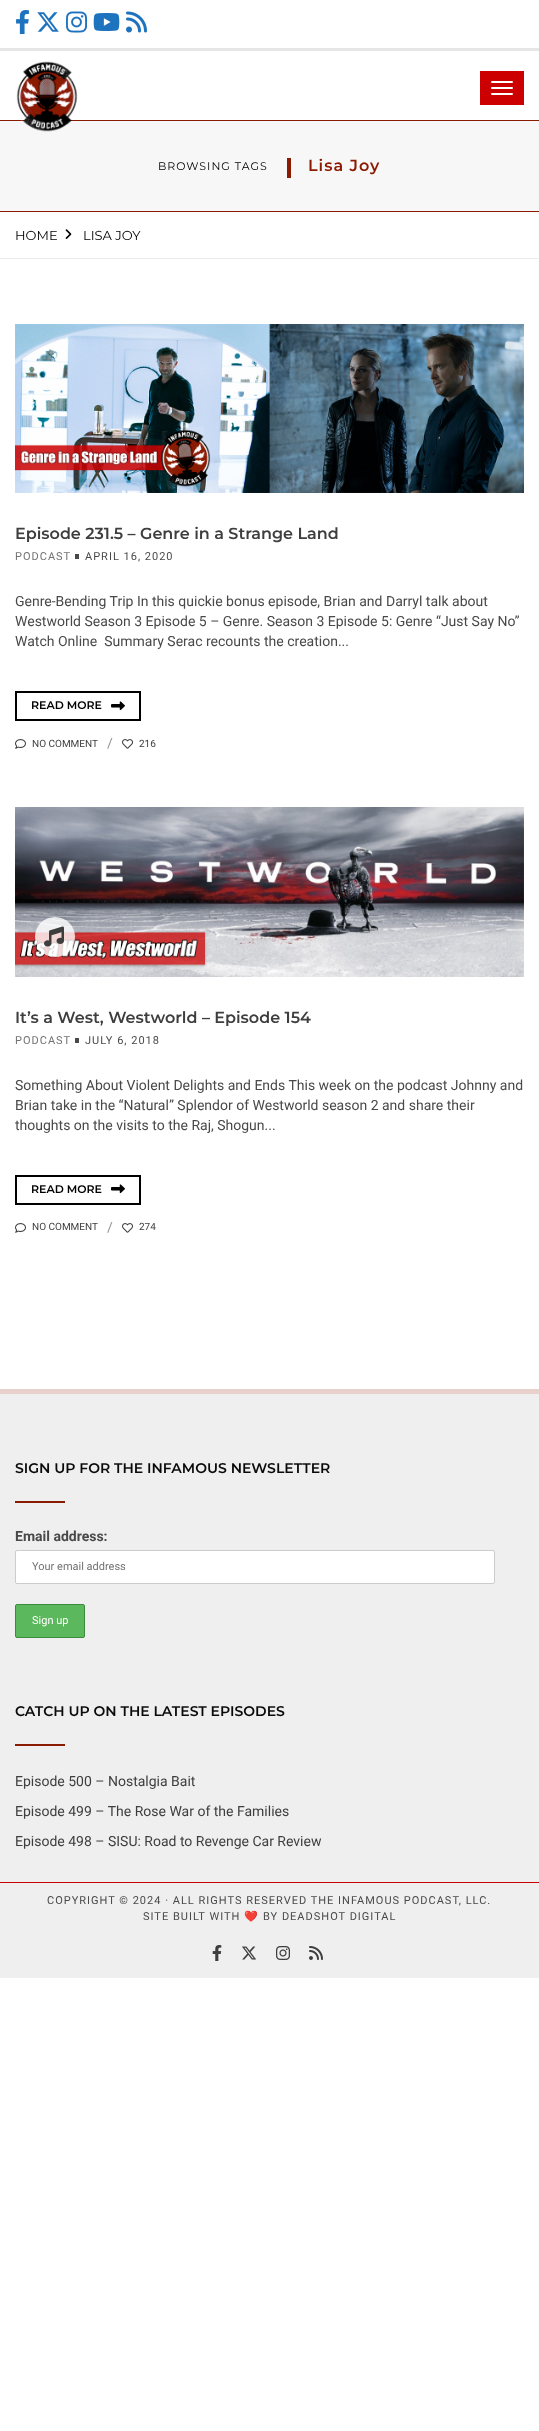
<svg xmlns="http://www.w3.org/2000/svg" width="539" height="2431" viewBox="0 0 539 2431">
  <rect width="100%" height="100%" fill="#fff"/>
  <path d="M0 48h539v3H0z" fill="#e6e6e6"/>
  <image x="16" y="10" width="13" height="24" href="img/1.png"/>
  <image x="37" y="12" width="22" height="20" href="img/2.png"/>
  <image x="66" y="11" width="21" height="22" href="img/3.png"/>
  <image x="93" y="13" width="27" height="18" href="img/4.png"/>
  <image x="126" y="11" width="21" height="22" href="img/5.png"/>
  <path d="M0 121h539v90H0z" fill="#f7f7f7"/>
  <path d="M0 120h539v1H0z" fill="#8b1b00"/>
  <image x="16" y="61" width="62" height="71" href="img/6.png"/>
  <path d="M480 71h44v34H480z" fill="#c00"/>
  <rect x="491" y="81" width="22" height="2" rx="1" fill="#fff"/>
  <rect x="491" y="87" width="22" height="2" rx="1" fill="#fff"/>
  <rect x="491" y="93" width="22" height="2" rx="1" fill="#fff"/>
  <path d="M0 211h539v1H0z" fill="#8b1b00"/>
  <path d="M287 158h4v20H287z" fill="#8b1b00"/>
  <path d="M0 258h539v1H0z" fill="#ececec"/>
  <image x="65" y="229" width="7" height="10" href="img/7.png"/>
  <image x="15" y="324" width="509" height="169" href="img/8.png"/>
  <path d="M75 554h4v5H75z" fill="#494949"/>
  <path d="M16 692h124v28H16z" fill="none" stroke="#000" stroke-width="2"/>
  <image x="111" y="701" width="14" height="10" href="img/9.png"/>
  <image x="15" y="739" width="11" height="10" href="img/10.png"/>
  <image x="122" y="739" width="11" height="10" href="img/11.png"/>
  <image x="15" y="807" width="509" height="170" href="img/12.png"/>
  <circle cx="55" cy="937" r="20" fill="#ffffffcc"/>
  <image x="44" y="926" width="20" height="21" href="img/13.png"/>
  <path d="M75 1038h4v5H75z" fill="#494949"/>
  <path d="M16 1176h124v28H16z" fill="none" stroke="#000" stroke-width="2"/>
  <image x="111" y="1184" width="14" height="10" href="img/9.png"/>
  <image x="15" y="1223" width="11" height="10" href="img/10.png"/>
  <image x="122" y="1223" width="11" height="10" href="img/11.png"/>
  <path d="M0 1389h539v5H0z" fill="#e8d1cc"/>
  <path d="M0 1394h539v584H0z" fill="#efefef"/>
  <path d="M15 1501h50v2H15z" fill="#8b1b00"/>
  <rect x="15.5" y="1550.5" width="479" height="33" rx="1.5" fill="#fff" stroke="#ccc"/>
  <rect x="15.5" y="1604.5" width="69" height="33" rx="1.5" fill="#5cb85c" stroke="#3d8b3d"/>
  <path d="M15 1744h50v2H15z" fill="#8b1b00"/>
  <path d="M0 1882h539v1H0z" fill="#c00"/>
  <image x="212" y="1945" width="10" height="16" href="img/14.png"/>
  <image x="242" y="1946" width="15" height="14" href="img/15.png"/>
  <image x="276" y="1946" width="14" height="14" href="img/16.png"/>
  <image x="309" y="1946" width="14" height="14" href="img/17.png"/>
  <text x="158" y="170" font-family="Montserrat" font-size="11" letter-spacing="1" fill="#000">BROWSING TAGS</text>
  <text x="308" y="171" font-family="Montserrat" font-size="16" font-weight="600" letter-spacing="1" fill="#8b1b00">Lisa Joy</text>
  <g font-family="Montserrat" font-size="13" fill="#000">
    <text x="15" y="240">HOME</text>
    <text x="83" y="240">LISA JOY</text>
  </g>
  <text x="15" y="539" font-family="Montserrat" font-size="16" font-weight="600" fill="#3e3e3e">Episode 231.5 – Genre in a Strange Land</text>
  <text x="15" y="560" font-family="Roboto" font-size="11" letter-spacing="1" fill="#737373">PODCAST</text>
  <text x="85" y="560" font-family="Roboto" font-size="11" letter-spacing="1" fill="#494949">APRIL 16, 2020</text>
  <g font-family="Roboto" font-size="14" fill="#494949">
    <text x="15" y="606">Genre-Bending Trip In this quickie bonus episode, Brian and Darryl talk about</text>
    <text x="15" y="626">Westworld Season 3 Episode 5 – Genre. Season 3 Episode 5: Genre “Just Say No”</text>
    <text x="15" y="646" xml:space="preserve">Watch Online  Summary Serac recounts the creation...</text>
  </g>
  <text x="31" y="709" font-family="Montserrat" font-size="11" font-weight="600" fill="#000">READ MORE</text>
  <text x="32" y="747" font-family="Roboto" font-size="10" fill="#3e3e3e">NO COMMENT</text>
  <text x="107" y="748" font-family="Roboto" font-size="14" fill="#939393">/</text>
  <text x="139" y="747" font-family="Roboto" font-size="10" fill="#3e3e3e">216</text>
  <text x="15" y="1023" font-family="Montserrat" font-size="16" font-weight="600" fill="#3e3e3e">It’s a West, Westworld – Episode 154</text>
  <text x="15" y="1044" font-family="Roboto" font-size="11" letter-spacing="1" fill="#737373">PODCAST</text>
  <text x="85" y="1044" font-family="Roboto" font-size="11" letter-spacing="1" fill="#494949">JULY 6, 2018</text>
  <g font-family="Roboto" font-size="14" fill="#494949">
    <text x="15" y="1090">Something About Violent Delights and Ends This week on the podcast Johnny and</text>
    <text x="15" y="1110">Brian take in the “Natural” Splendor of Westworld season 2 and share their</text>
    <text x="15" y="1130">thoughts on the visits to the Raj, Shogun...</text>
  </g>
  <text x="31" y="1193" font-family="Montserrat" font-size="11" font-weight="600" fill="#000">READ MORE</text>
  <text x="32" y="1230" font-family="Roboto" font-size="10" fill="#3e3e3e">NO COMMENT</text>
  <text x="107" y="1232" font-family="Roboto" font-size="14" fill="#939393">/</text>
  <text x="139" y="1230" font-family="Roboto" font-size="10" fill="#3e3e3e">274</text>
  <text x="15" y="1473" font-family="Montserrat" font-size="14" font-weight="600" fill="#0a0a0a">SIGN UP FOR THE INFAMOUS NEWSLETTER</text>
  <text x="15" y="1541" font-family="Roboto" font-size="14" font-weight="bold" fill="#494949">Email address:</text>
  <text x="32" y="1570" font-family="Roboto" font-size="11" fill="#737373">Your email address</text>
  <text x="32" y="1624" font-family="Roboto" font-size="11" fill="#fff">Sign up</text>
  <text x="15" y="1716" font-family="Montserrat" font-size="14" font-weight="600" fill="#0a0a0a">CATCH UP ON THE LATEST EPISODES</text>
  <g font-family="Roboto" font-size="14" fill="#3e3e3e">
    <text x="15" y="1786">Episode 500 – Nostalgia Bait</text>
    <text x="15" y="1816">Episode 499 – The Rose War of the Families</text>
    <text x="15" y="1846">Episode 498 – SISU: Road to Revenge Car Review</text>
  </g>
  <g font-family="Roboto" font-size="11" letter-spacing="1" fill="#494949">
    <text x="47" y="1904">COPYRIGHT © 2024 · ALL RIGHTS RESERVED THE INFAMOUS PODCAST, LLC.</text>
    <text x="143" y="1920">SITE BUILT WITH</text>
  </g>
  <text x="244" y="1920" font-family="Noto Color Emoji" font-size="11" letter-spacing="1" fill="#494949">❤️</text>
  <text x="263" y="1920" font-family="Roboto" font-size="11" letter-spacing="1" fill="#494949">BY DEADSHOT DIGITAL</text>
</svg>
